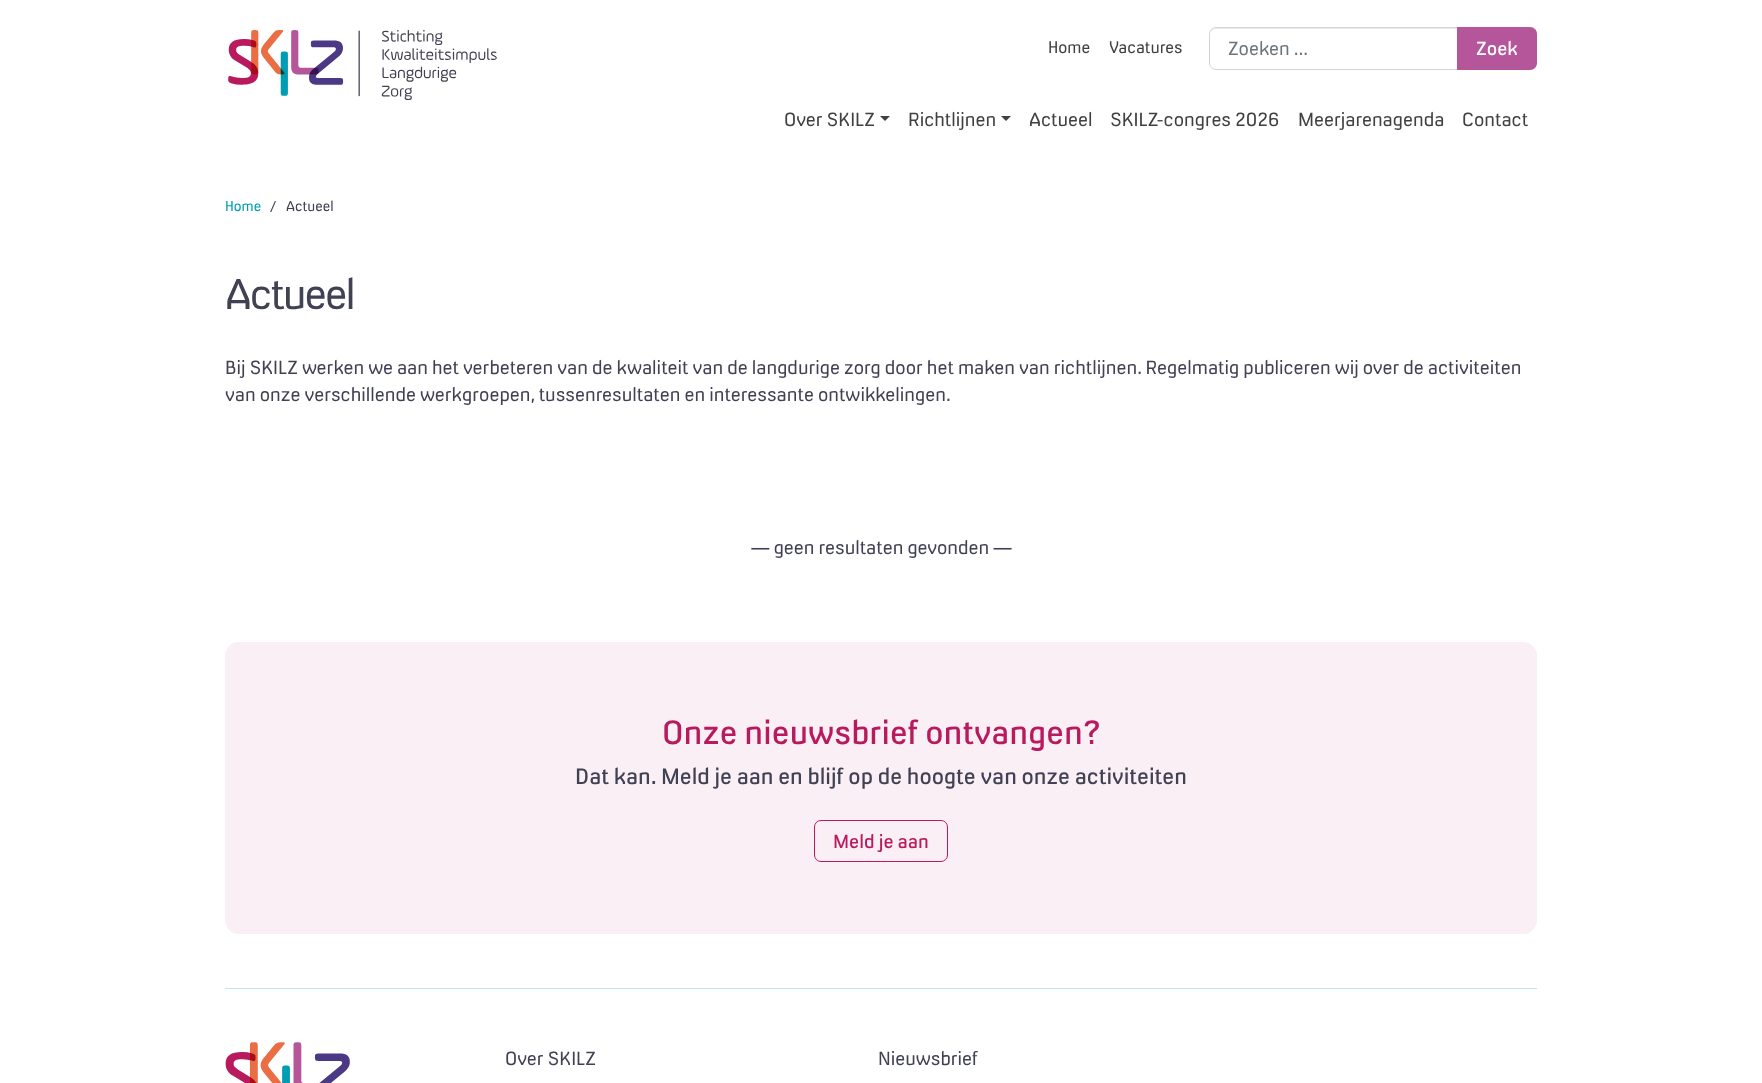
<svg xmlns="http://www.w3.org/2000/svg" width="1762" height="1083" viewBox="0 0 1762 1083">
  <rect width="100%" height="100%" fill="#fff"/>
  <path d="M1216 29H1457V28H1216C1212 28 1210 31 1210 35C1210 32 1213 29 1216 29Z" fill="#ececec"/>
  <path d="M1216 27.5H1457.5V69.5H1216C1212.5 69.5 1209.5 66.5 1209.5 63V34C1209.5 30.5 1212.5 27.5 1216 27.5Z" fill="none" stroke="#ced4da"/>
  <path d="M1457 27H1530C1534 27 1537 30 1537 34V63C1537 67 1534 70 1530 70H1457Z" fill="#b5569a"/>
  <image x="228" y="30" width="269" height="70" href="img/1.png"/>
  <path d="M880 116H890L885 121Z" fill="#404040"/>
  <path d="M1001 116H1011L1006 121Z" fill="#404040"/>
  <rect x="225" y="642" width="1312" height="292" rx="14" fill="#faeff4"/>
  <rect x="814.5" y="820.5" width="133" height="41" rx="6.5" fill="none" stroke="#b81a5d"/>
  <path d="M225 988h1312v1H225z" fill="#bfe6ec"/>
  <image x="225" y="1042" width="125" height="41" href="img/2.png"/>
  <g font-family="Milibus" font-size="15.75" fill="#404040">
    <text x="1048" y="53">Home</text>
    <text x="1109" y="53">Vacatures</text>
  </g>
  <text x="1228" y="55" font-family="Milibus" font-size="18" fill="#6c757d">Zoeken ...</text>
  <text x="1476" y="55" font-family="'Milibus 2'" font-size="18" fill="#fff">Zoek</text>
  <g font-family="Milibus" font-size="18" fill="#404040">
    <text x="784" y="126">Over SKILZ</text>
    <text x="908" y="126">Richtlijnen</text>
    <text x="1029" y="126">Actueel</text>
    <text x="1110" y="126">SKILZ-congres 2026</text>
    <text x="1298" y="126">Meerjarenagenda</text>
    <text x="1462" y="126">Contact</text>
  </g>
  <text x="225" y="211" font-family="Milibus" font-size="13.5" fill="#009cb4">Home</text>
  <g font-family="Milibus" font-size="13.5" fill="#414154">
    <text x="270" y="211">/</text>
    <text x="286" y="211">Actueel</text>
  </g>
  <text x="225" y="309" font-family="Milibus" font-size="40.5" letter-spacing="-2" fill="#414154">Actueel</text>
  <g font-family="Milibus" font-size="18" fill="#414154">
    <text x="225" y="374">Bij SKILZ werken we aan het verbeteren van de kwaliteit van de langdurige zorg door het maken van richtlijnen. Regelmatig publiceren wij over de activiteiten</text>
    <text x="225" y="401">van onze verschillende werkgroepen, tussenresultaten en interessante ontwikkelingen.</text>
    <text x="751" y="554">— geen resultaten gevonden —</text>
  </g>
  <text x="662" y="744" font-family="'Milibus 2'" font-size="31.5" fill="#b81a5d">Onze nieuwsbrief ontvangen?</text>
  <text x="575" y="784" font-family="'Milibus 2'" font-size="21.15" fill="#414154">Dat kan. Meld je aan en blijf op de hoogte van onze activiteiten</text>
  <text x="833" y="848" font-family="'Milibus 2'" font-size="18" fill="#b81a5d">Meld je aan</text>
  <g font-family="Milibus" font-size="18" fill="#414154">
    <text x="505" y="1065">Over SKILZ</text>
    <text x="878" y="1065">Nieuwsbrief</text>
  </g>
</svg>
